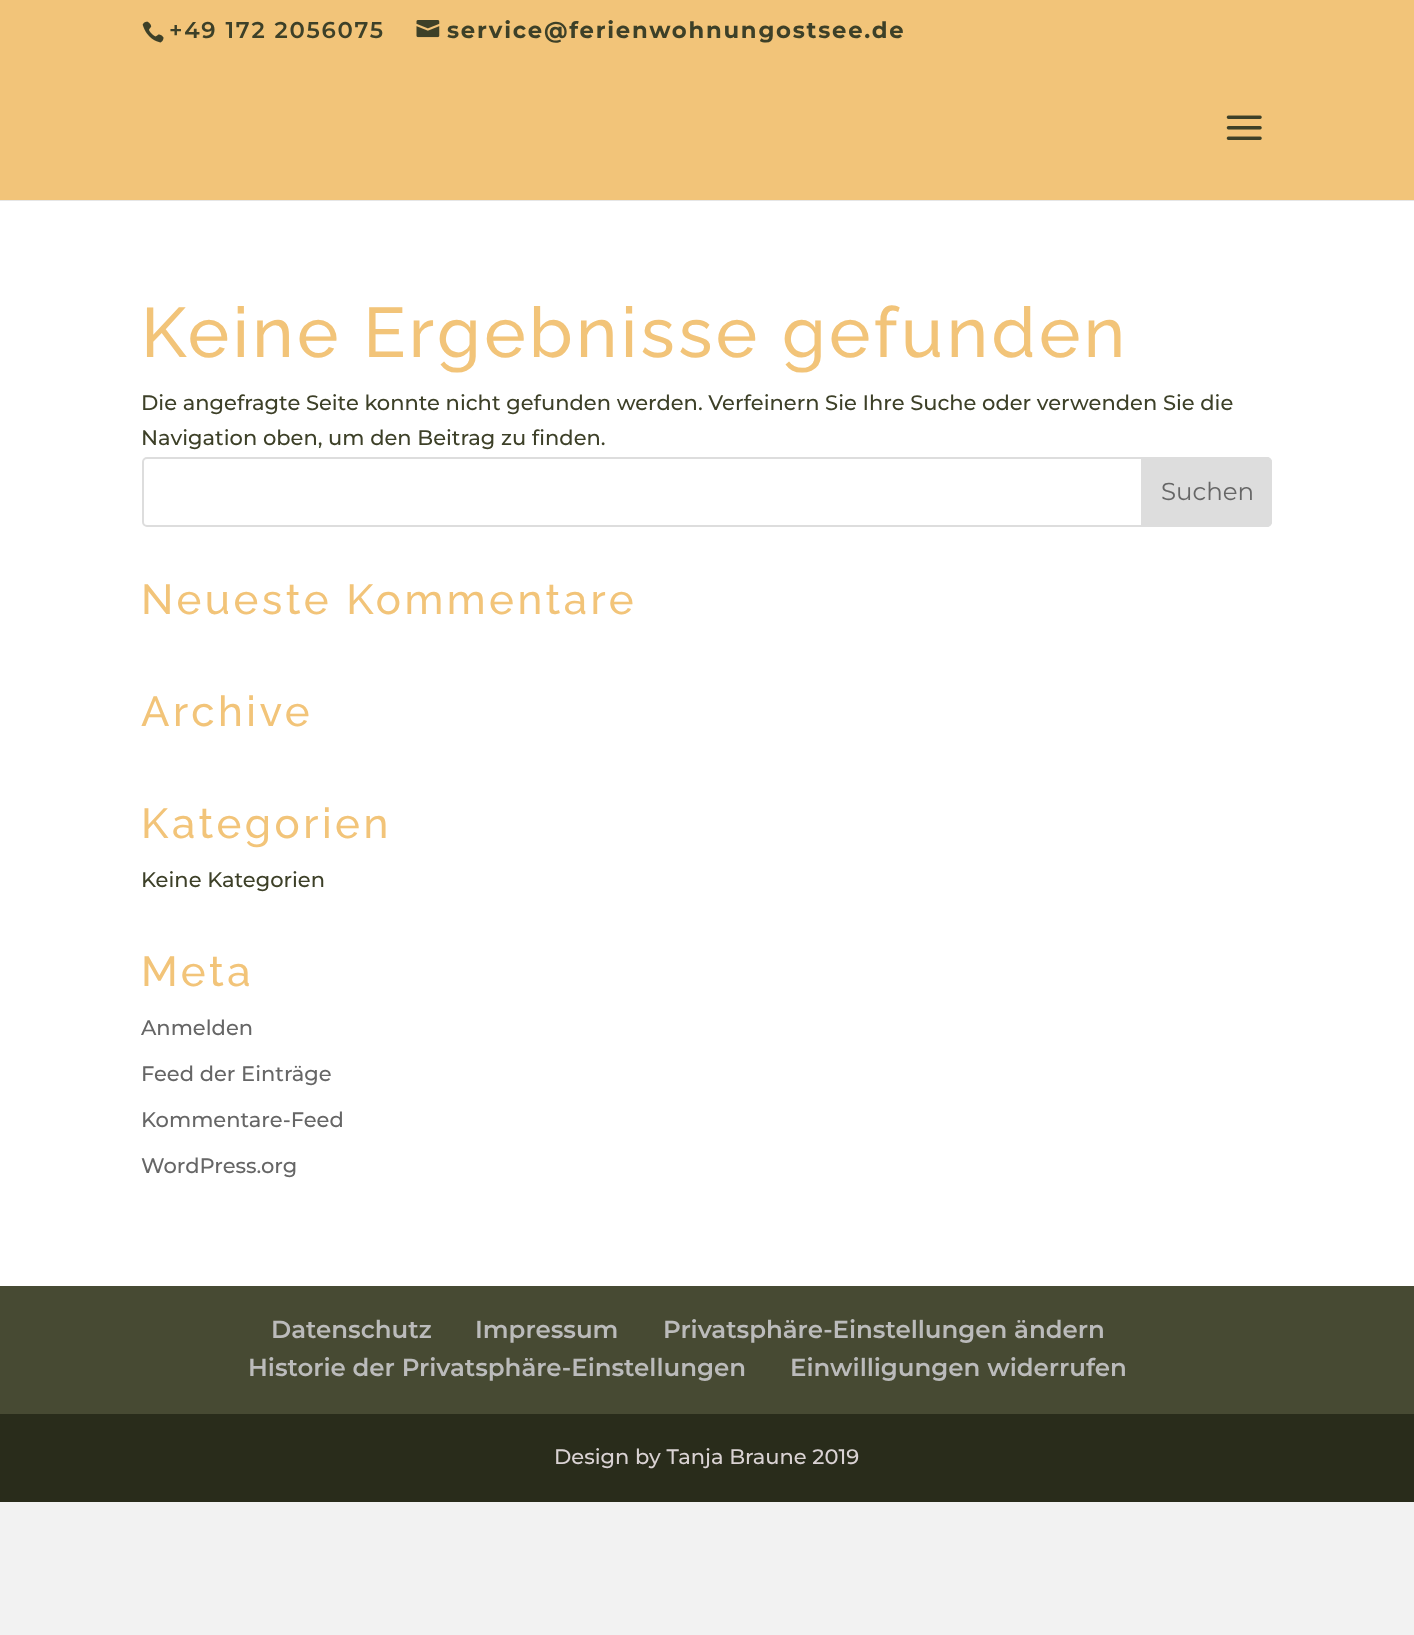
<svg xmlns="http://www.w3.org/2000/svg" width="1414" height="1635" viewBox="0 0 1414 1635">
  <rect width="100%" height="100%" fill="#f2f2f2"/>
  <path d="M0 200h1414v1H0z" fill="#e6e6e6"/>
  <path d="M0 0h1414v200H0z" fill="#f2c479"/>
  <image x="1226" y="115" width="36" height="25" href="img/1.png"/>
  <image x="142" y="21" width="22" height="22" href="img/2.png"/>
  <image x="416" y="20" width="24" height="18" href="img/3.png"/>
  <path d="M0 201h1414v1085H0z" fill="#fff"/>
  <rect x="143" y="458" width="1128" height="68" rx="4" fill="none" stroke="#ddd" stroke-width="2"/>
  <path d="M1142 458H1267C1269 458 1271 460 1271 462V522C1271 524 1269 526 1267 526H1142Z" fill="#ddd" stroke="#ddd" stroke-width="2"/>
  <path d="M0 1286h1414v128H0z" fill="#474a33"/>
  <path d="M0 1414h1414v88H0z" fill="#292c1b"/>
  <text x="169" y="38" font-family="Montserrat" font-size="22.75" font-weight="600" letter-spacing="1.75" fill="#3d4028">+49 172 2056075</text>
  <text x="447" y="38" font-family="Montserrat" font-size="22.75" font-weight="bold" letter-spacing="1.75" fill="#3d4028">service@ferienwohnungostsee.de</text>
  <text x="141" y="357" font-family="Raleway" font-size="70" font-weight="500" letter-spacing="3.5" fill="#f2c479">Keine Ergebnisse gefunden</text>
  <g font-family="Montserrat" font-size="21" font-weight="500" fill="#3d4028">
    <text x="141" y="410">Die angefragte Seite konnte nicht gefunden werden. Verfeinern Sie Ihre Suche oder verwenden Sie die</text>
    <text x="141" y="445">Navigation oben, um den Beitrag zu finden.</text>
  </g>
  <text x="1161" y="500" font-family="Montserrat" font-size="24.5" fill="#666">Suchen</text>
  <g font-family="Raleway" font-size="42" font-weight="500" letter-spacing="3.5" fill="#f2c479">
    <text x="141" y="614">Neueste Kommentare</text>
    <text x="141" y="726">Archive</text>
    <text x="141" y="838">Kategorien</text>
  </g>
  <text x="141" y="887" font-family="Montserrat" font-size="21" font-weight="500" fill="#3d4028">Keine Kategorien</text>
  <text x="141" y="986" font-family="Raleway" font-size="42" font-weight="500" letter-spacing="3.5" fill="#f2c479">Meta</text>
  <g font-family="Montserrat" font-size="21" font-weight="500" fill="#666">
    <text x="141" y="1035">Anmelden</text>
    <text x="141" y="1081">Feed der Einträge</text>
    <text x="141" y="1127">Kommentare-Feed</text>
    <text x="141" y="1173">WordPress.org</text>
  </g>
  <g font-family="Montserrat" font-size="24.5" font-weight="600" fill="#bbb">
    <text x="271" y="1338">Datenschutz</text>
    <text x="475" y="1338">Impressum</text>
    <text x="663" y="1338">Privatsphäre-Einstellungen ändern</text>
    <text x="248" y="1376">Historie der Privatsphäre-Einstellungen</text>
    <text x="790" y="1376">Einwilligungen widerrufen</text>
  </g>
  <text x="554" y="1464" font-family="Montserrat" font-size="21" font-weight="500" fill="#d9d2d3">Design by Tanja Braune 2019</text>
</svg>
